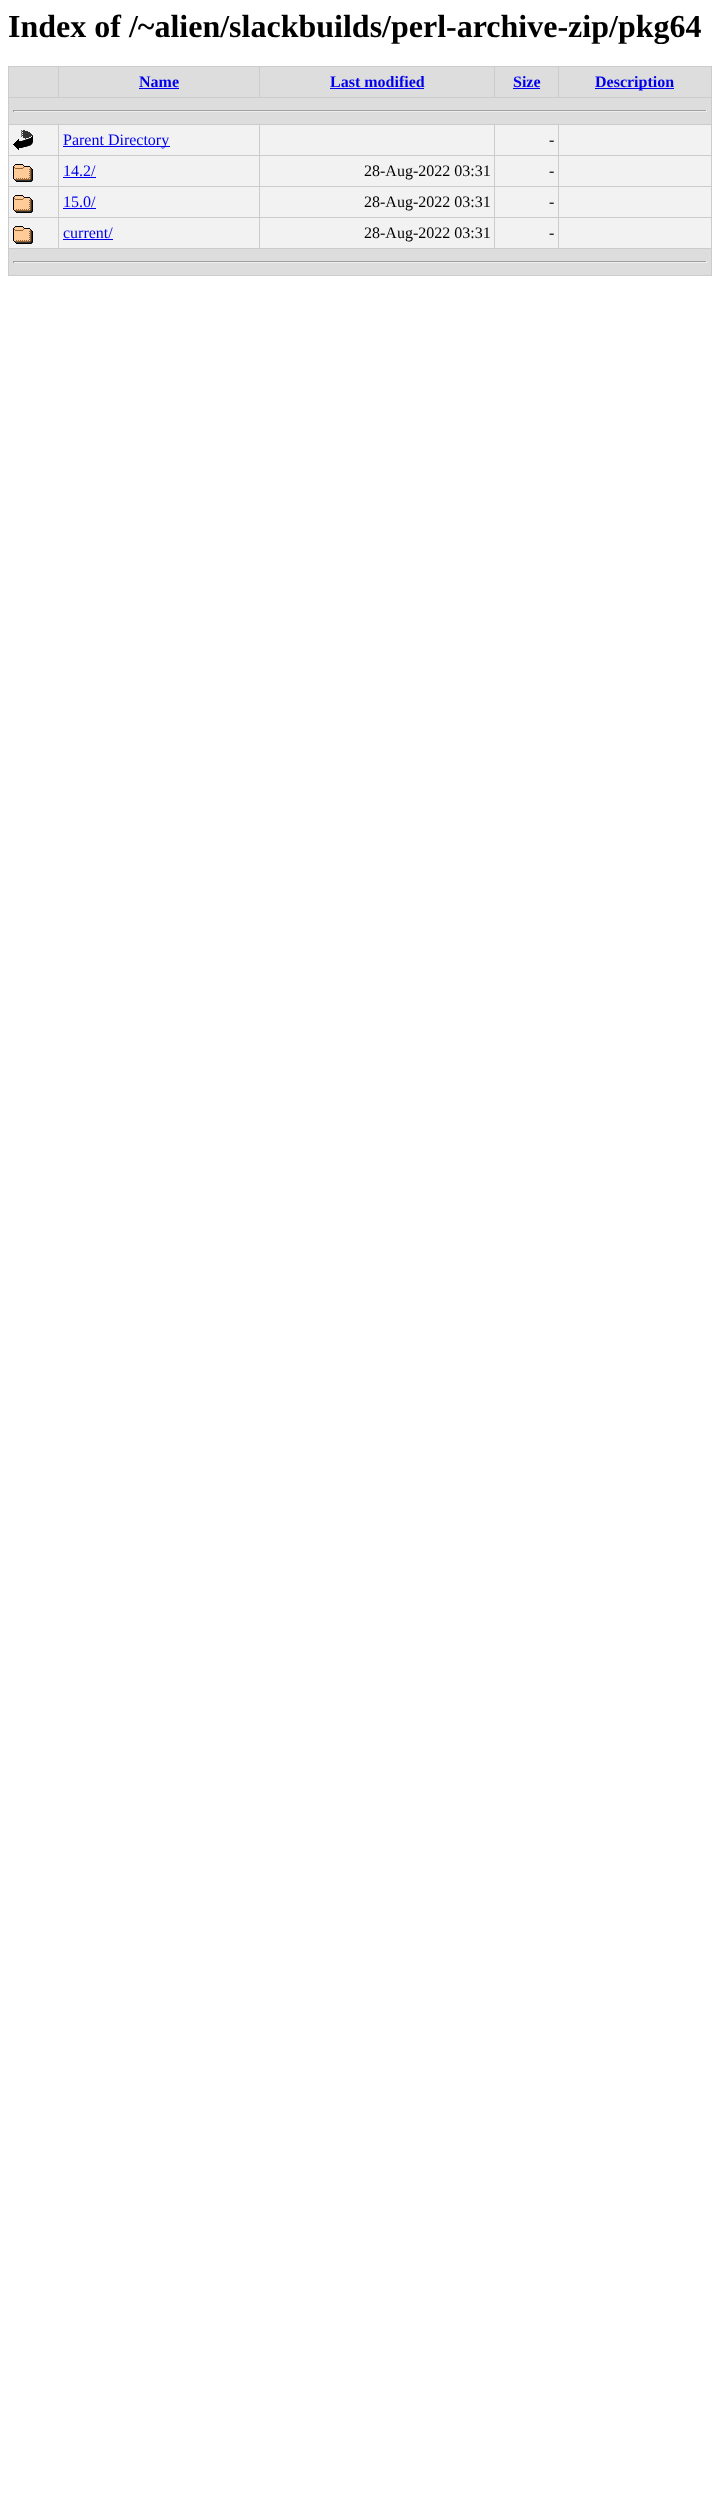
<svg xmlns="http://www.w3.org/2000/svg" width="720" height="2500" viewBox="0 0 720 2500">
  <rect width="100%" height="100%" fill="#fff"/>
  <path d="M9 67h49v30H9z" fill="#ddd"/>
  <path d="M558 66h154v1H558z" fill="#ccc"/>
  <path d="M8 97h704v1H8z" fill="#ccc"/>
  <path d="M558 66h1v32H558z" fill="#ccc"/>
  <path d="M494 66h65v1H494z" fill="#ccc"/>
  <path d="M494 66h1v32H494z" fill="#ccc"/>
  <path d="M259 66h236v1H259z" fill="#ccc"/>
  <path d="M259 66h1v32H259z" fill="#ccc"/>
  <path d="M58 66h202v1H58z" fill="#ccc"/>
  <path d="M58 66h1v32H58z" fill="#ccc"/>
  <path d="M8 66h51v1H8z" fill="#ccc"/>
  <path d="M558 124h154v1H558z" fill="#ccc"/>
  <path d="M9 125h702v30H9z" fill="#f2f2f2"/>
  <path d="M558 155h154v1H558z" fill="#ccc"/>
  <path d="M9 156h702v30H9z" fill="#f2f2f2"/>
  <path d="M558 186h154v1H558z" fill="#ccc"/>
  <path d="M9 187h702v30H9z" fill="#f2f2f2"/>
  <path d="M558 217h154v1H558z" fill="#ccc"/>
  <path d="M9 218h702v30H9z" fill="#f2f2f2"/>
  <path d="M8 248h704v1H8z" fill="#ccc"/>
  <path d="M558 217h1v32H558z" fill="#ccc"/>
  <path d="M494 217h65v1H494z" fill="#ccc"/>
  <path d="M558 186h1v32H558z" fill="#ccc"/>
  <path d="M494 186h65v1H494z" fill="#ccc"/>
  <path d="M558 155h1v32H558z" fill="#ccc"/>
  <path d="M494 155h65v1H494z" fill="#ccc"/>
  <path d="M558 124h1v32H558z" fill="#ccc"/>
  <path d="M494 124h65v1H494z" fill="#ccc"/>
  <path d="M494 217h1v32H494z" fill="#ccc"/>
  <path d="M259 217h236v1H259z" fill="#ccc"/>
  <path d="M494 186h1v32H494z" fill="#ccc"/>
  <path d="M259 186h236v1H259z" fill="#ccc"/>
  <path d="M494 155h1v32H494z" fill="#ccc"/>
  <path d="M259 155h236v1H259z" fill="#ccc"/>
  <path d="M494 124h1v32H494z" fill="#ccc"/>
  <path d="M259 124h236v1H259z" fill="#ccc"/>
  <path d="M259 217h1v32H259z" fill="#ccc"/>
  <path d="M58 217h202v1H58z" fill="#ccc"/>
  <path d="M259 186h1v32H259z" fill="#ccc"/>
  <path d="M58 186h202v1H58z" fill="#ccc"/>
  <path d="M259 155h1v32H259z" fill="#ccc"/>
  <path d="M58 155h202v1H58z" fill="#ccc"/>
  <path d="M259 124h1v32H259z" fill="#ccc"/>
  <path d="M58 124h202v1H58z" fill="#ccc"/>
  <path d="M58 217h1v32H58z" fill="#ccc"/>
  <path d="M8 217h51v1H8z" fill="#ccc"/>
  <path d="M58 186h1v32H58z" fill="#ccc"/>
  <path d="M8 186h51v1H8z" fill="#ccc"/>
  <path d="M58 155h1v32H58z" fill="#ccc"/>
  <path d="M8 155h51v1H8z" fill="#ccc"/>
  <path d="M58 124h1v32H58z" fill="#ccc"/>
  <path d="M8 124h51v1H8z" fill="#ccc"/>
  <path d="M711 248h1v28H711z" fill="#ccc"/>
  <path d="M8 275h704v1H8z" fill="#ccc"/>
  <path d="M8 248h1v28H8z" fill="#ccc"/>
  <path d="M8 217h1v32H8z" fill="#ccc"/>
  <path d="M8 186h1v32H8z" fill="#ccc"/>
  <path d="M8 155h1v32H8z" fill="#ccc"/>
  <path d="M8 124h1v32H8z" fill="#ccc"/>
  <path d="M8 97h1v28H8z" fill="#ccc"/>
  <path d="M8 66h1v32H8z" fill="#ccc"/>
  <path d="M59 67h200v30H59z" fill="#ddd"/>
  <path d="M139 88h40v1H139z" fill="#00e"/>
  <path d="M260 67h234v30H260z" fill="#ddd"/>
  <path d="M330 88h94v1H330z" fill="#00e"/>
  <path d="M495 67h63v30H495z" fill="#ddd"/>
  <path d="M513 88h27v1H513z" fill="#00e"/>
  <path d="M559 67h152v30H559z" fill="#ddd"/>
  <path d="M711 217h1v32H711z" fill="#ccc"/>
  <path d="M711 186h1v32H711z" fill="#ccc"/>
  <path d="M711 155h1v32H711z" fill="#ccc"/>
  <path d="M711 124h1v32H711z" fill="#ccc"/>
  <path d="M711 97h1v28H711z" fill="#ccc"/>
  <path d="M711 66h1v32H711z" fill="#ccc"/>
  <path d="M595 88h79v1H595z" fill="#00e"/>
  <path d="M9 98h702v26H9z" fill="#ddd"/>
  <path d="M13 110h694v1H13z" fill="#9f9f9f"/>
  <path d="M706 110h1v2H706z" fill="#eee"/>
  <path d="M13 111h694v1H13z" fill="#eee"/>
  <path d="M13 110h1v2H13z" fill="#9f9f9f"/>
  <image x="13" y="130" width="20" height="20" href="img/1.png"/>
  <path d="M63 146h107v1H63z" fill="#00e"/>
  <image x="13" y="164" width="20" height="18" href="img/2.png"/>
  <path d="M63 177h33v1H63z" fill="#00e"/>
  <image x="13" y="195" width="20" height="18" href="img/2.png"/>
  <path d="M63 208h33v1H63z" fill="#00e"/>
  <image x="13" y="226" width="20" height="18" href="img/2.png"/>
  <path d="M63 239h50v1H63z" fill="#00e"/>
  <path d="M9 249h702v26H9z" fill="#ddd"/>
  <path d="M13 261h694v1H13z" fill="#9f9f9f"/>
  <path d="M706 261h1v2H706z" fill="#eee"/>
  <path d="M13 262h694v1H13z" fill="#eee"/>
  <path d="M13 261h1v2H13z" fill="#9f9f9f"/>
  <text x="8" y="37" font-family="Liberation Serif" font-size="32" font-weight="bold" fill="#000">Index of /~alien/slackbuilds/perl-archive-zip/pkg64</text>
  <g font-family="Liberation Serif" font-size="16" font-weight="bold" fill="#00e">
    <text x="139" y="87">Name</text>
    <text x="330" y="87">Last modified</text>
    <text x="513" y="87">Size</text>
    <text x="595" y="87">Description</text>
  </g>
  <text x="63" y="145" font-family="Liberation Serif" font-size="16" fill="#00e">Parent Directory</text>
  <text x="549" y="145" font-family="Liberation Serif" font-size="16" fill="#000">-</text>
  <text x="63" y="176" font-family="Liberation Serif" font-size="16" fill="#00e">14.2/</text>
  <g font-family="Liberation Serif" font-size="16" fill="#000">
    <text x="364" y="176">28-Aug-2022 03:31</text>
    <text x="549" y="176">-</text>
  </g>
  <text x="63" y="207" font-family="Liberation Serif" font-size="16" fill="#00e">15.0/</text>
  <g font-family="Liberation Serif" font-size="16" fill="#000">
    <text x="364" y="207">28-Aug-2022 03:31</text>
    <text x="549" y="207">-</text>
  </g>
  <text x="63" y="238" font-family="Liberation Serif" font-size="16" fill="#00e">current/</text>
  <g font-family="Liberation Serif" font-size="16" fill="#000">
    <text x="364" y="238">28-Aug-2022 03:31</text>
    <text x="549" y="238">-</text>
  </g>
</svg>
